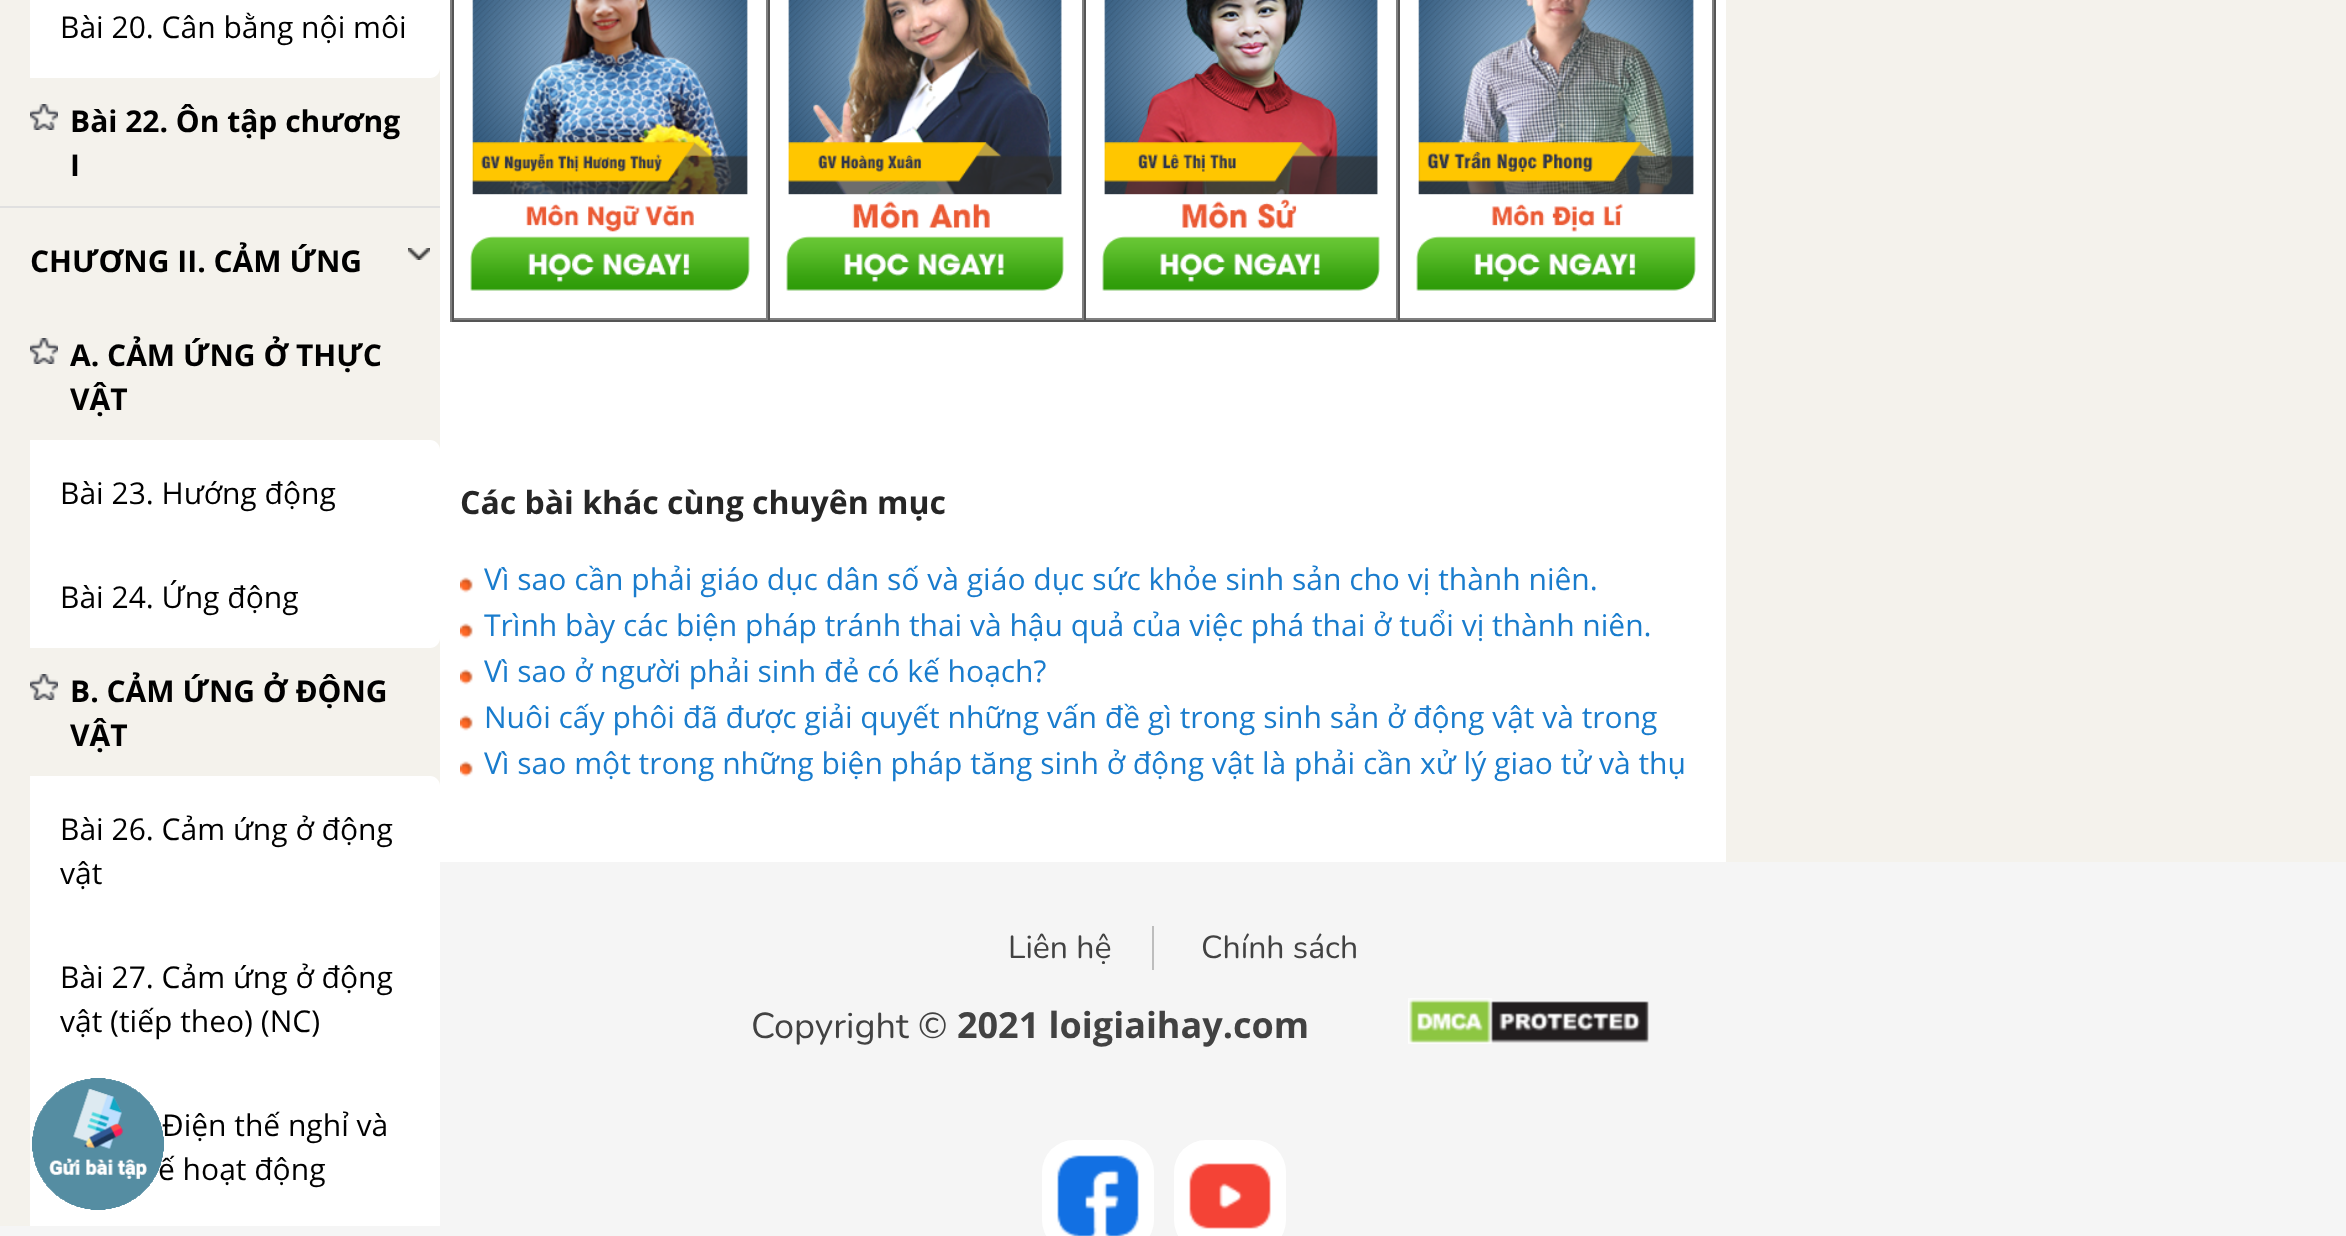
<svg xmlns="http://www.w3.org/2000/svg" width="2346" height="1236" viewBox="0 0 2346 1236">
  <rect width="100%" height="100%" fill="#f5f5f5"/>
  <path d="M1726 0h620v862H1726z" fill="#f4f2ec"/>
  <path d="M0 0h440v1226H0z" fill="#f4f2ec"/>
  <path d="M0 206h440v2H0z" fill="#e0e0e0"/>
  <path d="M30 0H440V68C440 73.5 435.5 78 430 78H30Z" fill="#fff"/>
  <image x="30" y="104" width="28" height="26" href="img/1.png"/>
  <image x="408" y="248" width="22" height="12" href="img/2.png"/>
  <image x="30" y="338" width="28" height="26" href="img/1.png"/>
  <path d="M30 440H430C435.5 440 440 444.5 440 450V544H30Z" fill="#fff"/>
  <path d="M30 544H440V638C440 643.5 435.5 648 430 648H30Z" fill="#fff"/>
  <image x="30" y="674" width="28" height="26" href="img/1.png"/>
  <path d="M30 776H430C435.5 776 440 780.5 440 786V924H30Z" fill="#fff"/>
  <path d="M30 924h410v302H30z" fill="#fff"/>
  <path d="M440 0h1286v862H440z" fill="#fff"/>
  <path d="M1714 0h2v322H1714z" fill="#555"/>
  <path d="M450 320h1266v2H450z" fill="#555"/>
  <path d="M450 0h2v322H450z" fill="#808080"/>
  <path d="M766 0h2v320H766z" fill="#808080"/>
  <path d="M452 318h316v2H452z" fill="#808080"/>
  <path d="M452 0h2v320H452z" fill="#555"/>
  <image x="470" y="0" width="280" height="291" href="img/3.png"/>
  <path d="M1082 0h2v320H1082z" fill="#808080"/>
  <path d="M768 318h316v2H768z" fill="#808080"/>
  <path d="M768 0h2v320H768z" fill="#555"/>
  <image x="786" y="0" width="278" height="291" href="img/4.png"/>
  <path d="M1396 0h2v320H1396z" fill="#808080"/>
  <path d="M1084 318h314v2H1084z" fill="#808080"/>
  <path d="M1084 0h2v320H1084z" fill="#555"/>
  <image x="1102" y="0" width="278" height="291" href="img/5.png"/>
  <path d="M1712 0h2v320H1712z" fill="#808080"/>
  <path d="M1398 318h316v2H1398z" fill="#808080"/>
  <path d="M1398 0h2v320H1398z" fill="#555"/>
  <image x="1416" y="0" width="280" height="291" href="img/6.png"/>
  <image x="460" y="577" width="13" height="16" href="img/7.png"/>
  <image x="460" y="623" width="13" height="16" href="img/7.png"/>
  <image x="460" y="669" width="13" height="16" href="img/7.png"/>
  <image x="460" y="715" width="13" height="16" href="img/7.png"/>
  <image x="460" y="761" width="13" height="16" href="img/7.png"/>
  <path d="M1152 926h2v44H1152z" fill="#bdbdbd"/>
  <image x="1408" y="998" width="241" height="46" href="img/8.png"/>
  <rect x="1042" y="1140" width="112" height="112" rx="32" fill="#fff"/>
  <image x="1057" y="1155" width="82" height="81" href="img/9.png"/>
  <rect x="1174" y="1140" width="112" height="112" rx="32" fill="#fff"/>
  <image x="1189" y="1163" width="82" height="66" href="img/10.png"/>
  <text x="60" y="38" font-family="Open Sans" font-size="30" fill="#000">Bài 20. Cân bằng nội môi</text>
  <g font-family="Open Sans" font-size="30" font-weight="bold" fill="#000">
    <text x="70" y="132">Bài 22. Ôn tập chương</text>
    <text x="70" y="176">I</text>
    <text x="30" y="272">CHƯƠNG II. CẢM ỨNG</text>
    <text x="70" y="366">A. CẢM ỨNG Ở THỰC</text>
    <text x="70" y="410">VẬT</text>
  </g>
  <g font-family="Open Sans" font-size="30" fill="#000">
    <text x="60" y="504">Bài 23. Hướng động</text>
    <text x="60" y="608">Bài 24. Ứng động</text>
  </g>
  <g font-family="Open Sans" font-size="30" font-weight="bold" fill="#000">
    <text x="70" y="702">B. CẢM ỨNG Ở ĐỘNG</text>
    <text x="70" y="746">VẬT</text>
  </g>
  <g font-family="Open Sans" font-size="30" fill="#000">
    <text x="60" y="840">Bài 26. Cảm ứng ở động</text>
    <text x="60" y="884">vật</text>
    <text x="60" y="988">Bài 27. Cảm ứng ở động</text>
    <text x="60" y="1032">vật (tiếp theo) (NC)</text>
    <text x="162" y="1136">Điện thế nghỉ và</text>
    <text x="158" y="1180">ế hoạt động</text>
  </g>
  <text x="460" y="514" font-family="Open Sans" font-size="32" font-weight="bold" fill="#262626">Các bài khác cùng chuyên mục</text>
  <g font-family="Open Sans" font-size="30" fill="#197ccd">
    <text x="484" y="590">Vì sao cần phải giáo dục dân số và giáo dục sức khỏe sinh sản cho vị thành niên.</text>
    <text x="484" y="636">Trình bày các biện pháp tránh thai và hậu quả của việc phá thai ở tuổi vị thành niên.</text>
    <text x="484" y="682">Vì sao ở người phải sinh đẻ có kế hoạch?</text>
    <text x="484" y="728">Nuôi cấy phôi đã được giải quyết những vấn đề gì trong sinh sản ở động vật và trong</text>
    <text x="484" y="774">Vì sao một trong những biện pháp tăng sinh ở động vật là phải cần xử lý giao tử và thụ</text>
  </g>
  <g font-family="Nunito" font-size="32" fill="#424242">
    <text x="1008" y="958">Liên hệ</text>
    <text x="1201" y="958">Chính sách</text>
  </g>
  <text x="751" y="1038" font-family="Nunito" font-size="36" fill="#424242">Copyright ©</text>
  <text x="957" y="1038" font-family="Open Sans" font-size="36" font-weight="bold" fill="#424242">2021 loigiaihay.com</text>
  <image x="32" y="1078" width="132" height="132" href="img/11.png"/>
</svg>
